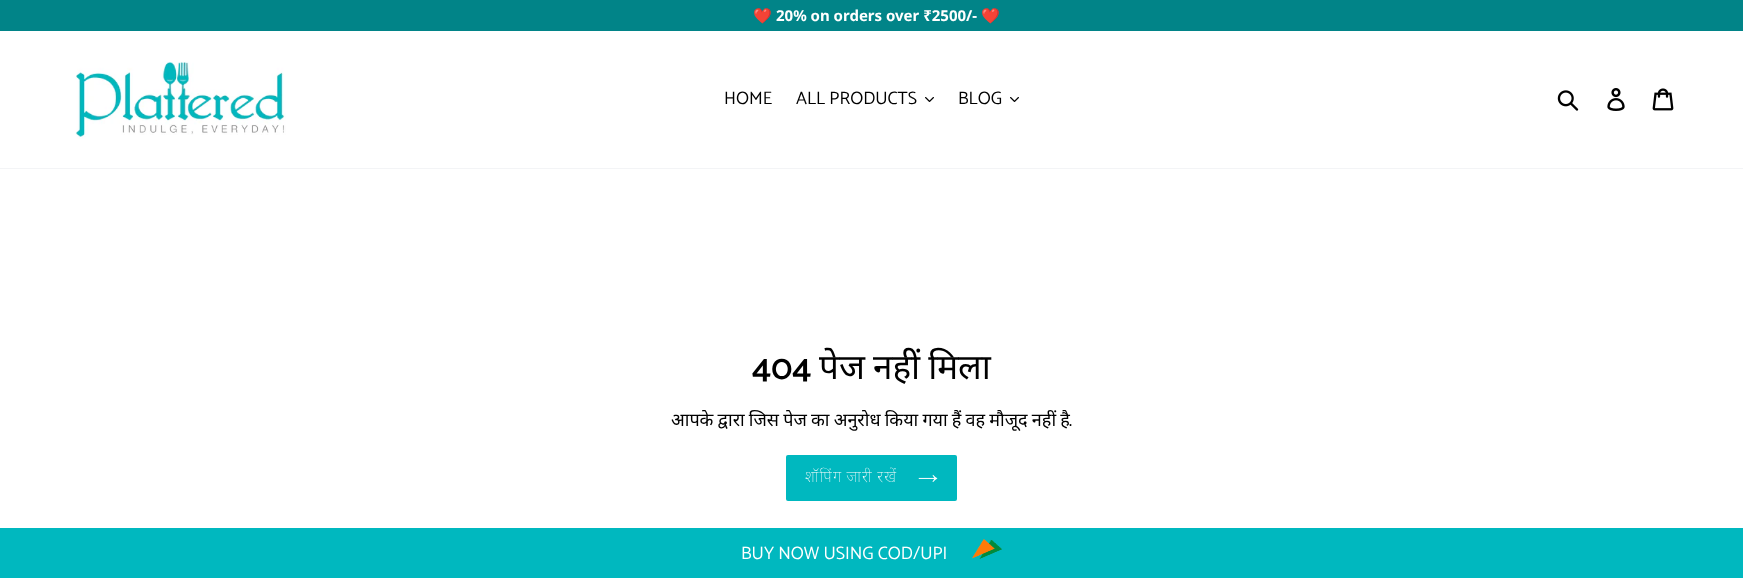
<svg xmlns="http://www.w3.org/2000/svg" width="1743" height="578" viewBox="0 0 1743 578">
  <rect width="100%" height="100%" fill="#fff"/>
  <path d="M0 0h1743v31H0z" fill="#018488"/>
  <path d="M0 168h1743v1H0z" fill="#f3f4f6"/>
  <image x="75" y="61" width="211" height="78" href="img/1.png"/>
  <image x="925" y="97" width="9" height="5" href="img/2.png"/>
  <image x="1010" y="97" width="9" height="5" href="img/2.png"/>
  <image x="1557" y="90" width="22" height="21" href="img/3.png"/>
  <image x="1607" y="88" width="18" height="23" href="img/4.png"/>
  <image x="1652" y="88" width="22" height="23" href="img/5.png"/>
  <rect x="786" y="455" width="171" height="46" rx="2" fill="#00b8bf"/>
  <image x="918" y="474" width="20" height="8" href="img/6.png"/>
  <path d="M0 528h1743v50H0z" fill="#00b8bf"/>
  <image x="972" y="539" width="30" height="20" href="img/7.png"/>
  <text x="753" y="21" font-family="Noto Color Emoji" font-size="15" fill="#fff">❤️</text>
  <text x="776" y="21" font-family="Noto Sans" font-size="15" font-weight="bold" fill="#fff">20% on orders over ₹2500/-</text>
  <text x="981" y="21" font-family="Noto Color Emoji" font-size="15" fill="#fff">❤️</text>
  <g font-family="Catamaran" font-size="18" fill="#000">
    <text x="724" y="104">HOME</text>
    <text x="796" y="104">ALL PRODUCTS</text>
    <text x="958" y="104">BLOG</text>
  </g>
  <text x="752" y="379" font-family="Catamaran" font-size="35" font-weight="600" fill="#000">404</text>
  <text x="819" y="379" word-spacing="-1" font-family="Noto Sans" font-size="35" fill="#000">पेज नहीं मिला</text>
  <text x="671" y="426" word-spacing="-0.5" font-family="Noto Sans" font-size="18" fill="#000">आपके द्वारा जिस पेज का अनुरोध किया गया हैं वह मौजूद नहीं है</text>
  <text x="1069" y="426" font-family="Catamaran" font-size="18" fill="#000">.</text>
  <text x="805" y="482" word-spacing="-1" font-family="Noto Sans" font-size="16" font-weight="100" letter-spacing="1.25" fill="#fff">शॉपिंग जारी रखें</text>
  <text x="741" y="559" font-family="Catamaran" font-size="18" fill="#fff">BUY NOW USING COD/UPI</text>
</svg>
